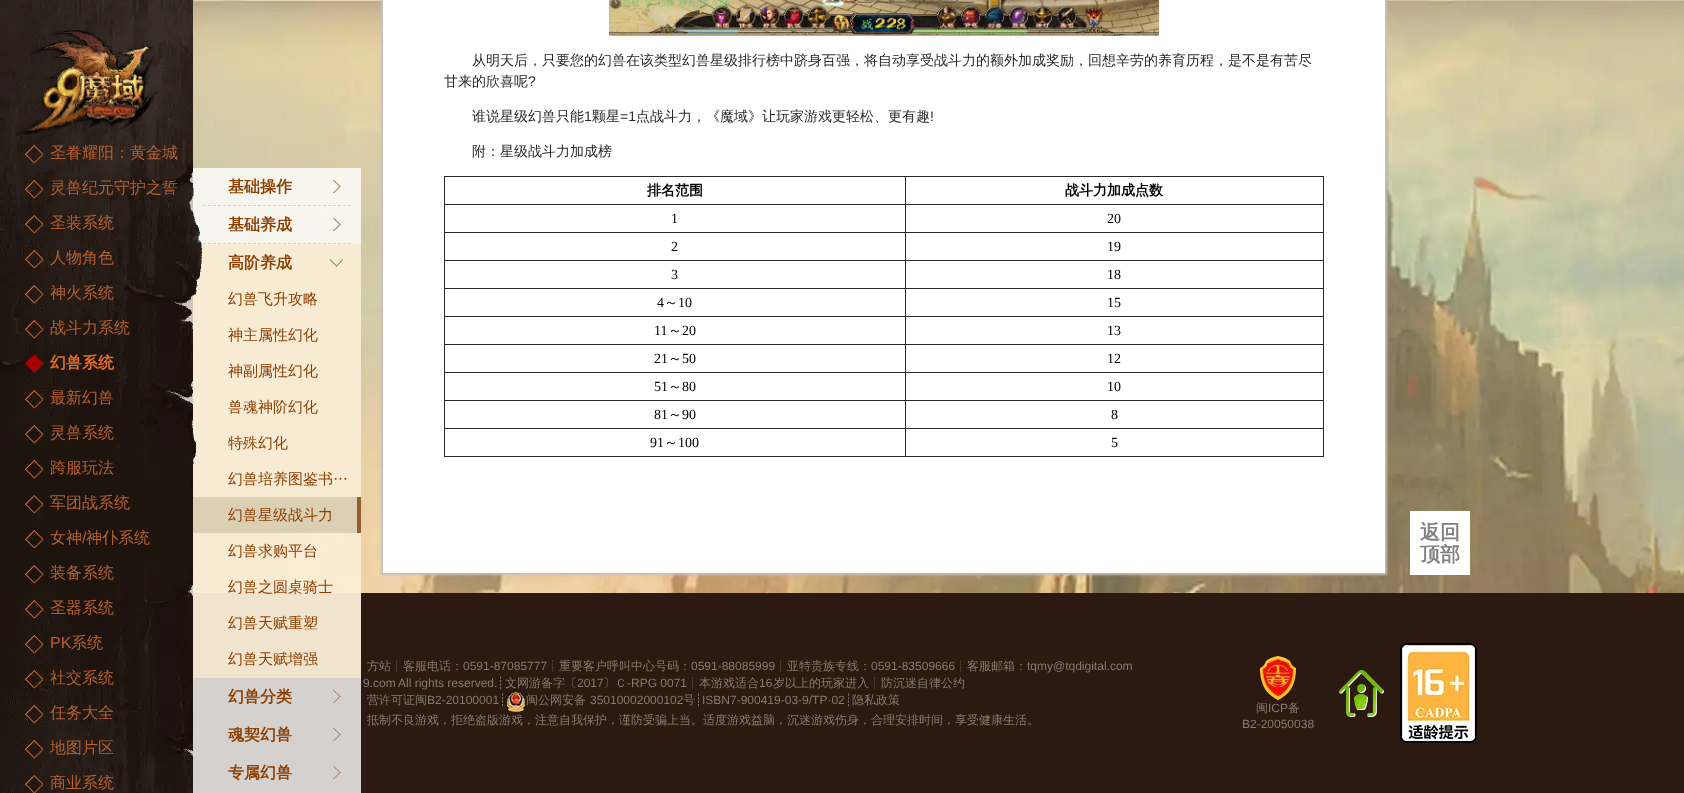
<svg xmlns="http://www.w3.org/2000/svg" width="1684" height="793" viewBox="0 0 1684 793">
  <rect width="100%" height="100%" fill="#d1c3b8"/>
  <image x="193" y="0" width="1491" height="593" href="img/25.png"/>
  <path d="M193 593h1491v200H193z" fill="#2c1912"/>
  <path d="M193 168h168v625H193z" fill="#ffffffcc"/>
  <path d="M193 244h168v434H193z" fill="#f7e9cdcc"/>
  <path d="M193 497h164v36H193z" fill="#dbd0b4"/>
  <image x="0" y="0" width="202" height="793" href="img/1.png"/>
  <image x="20" y="30" width="138" height="105" href="img/2.png"/>
  <image x="25" y="145" width="19" height="19" href="img/3.png"/>
  <image x="25" y="180" width="19" height="19" href="img/4.png"/>
  <image x="25" y="215" width="19" height="19" href="img/5.png"/>
  <image x="25" y="250" width="19" height="19" href="img/6.png"/>
  <image x="25" y="285" width="19" height="19" href="img/7.png"/>
  <image x="25" y="320" width="19" height="19" href="img/8.png"/>
  <image x="25" y="354" width="19" height="19" href="img/9.png"/>
  <image x="25" y="390" width="19" height="19" href="img/10.png"/>
  <image x="25" y="425" width="19" height="19" href="img/11.png"/>
  <image x="25" y="460" width="19" height="19" href="img/12.png"/>
  <image x="25" y="495" width="19" height="19" href="img/13.png"/>
  <image x="25" y="530" width="19" height="19" href="img/12.png"/>
  <image x="25" y="565" width="19" height="19" href="img/12.png"/>
  <image x="25" y="600" width="19" height="19" href="img/14.png"/>
  <image x="25" y="635" width="19" height="19" href="img/15.png"/>
  <image x="25" y="670" width="19" height="19" href="img/16.png"/>
  <image x="25" y="705" width="19" height="19" href="img/17.png"/>
  <image x="25" y="740" width="19" height="19" href="img/18.png"/>
  <image x="25" y="775" width="19" height="18" href="img/19.png"/>
  <path d="M203 205.5H351" fill="none" stroke="#d9d2c0" stroke-dasharray="3 2"/>
  <image x="332" y="180" width="9" height="13" href="img/20.png"/>
  <path d="M203 243.5H351" fill="none" stroke="#d9d2c0" stroke-dasharray="3 2"/>
  <image x="332" y="218" width="9" height="13" href="img/21.png"/>
  <image x="330" y="258" width="13" height="9" href="img/22.png"/>
  <path d="M357 497h4v36H357z" fill="#955d27"/>
  <path d="M203 715.5H351" fill="none" stroke="#d9d2c0" stroke-dasharray="3 2"/>
  <image x="332" y="690" width="9" height="13" href="img/23.png"/>
  <path d="M203 753.5H351" fill="none" stroke="#d9d2c0" stroke-dasharray="3 2"/>
  <image x="332" y="728" width="9" height="13" href="img/24.png"/>
  <path d="M203 791.5H351" fill="none" stroke="#d9d2c0" stroke-dasharray="3 2"/>
  <image x="332" y="766" width="9" height="13" href="img/24.png"/>
  <path d="M381 -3h1006v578H381z" fill="#c8bfbb" filter="blur(1px)"/>
  <path d="M383 0h1002v573H383z" fill="#fff"/>
  <image x="609" y="0" width="550" height="36" href="img/26.png"/>
  <path d="M905 176h419v1H905z" fill="#292929"/>
  <path d="M905 204h419v1H905z" fill="#292929"/>
  <path d="M905 232h419v1H905z" fill="#292929"/>
  <path d="M905 260h419v1H905z" fill="#292929"/>
  <path d="M905 288h419v1H905z" fill="#292929"/>
  <path d="M905 316h419v1H905z" fill="#292929"/>
  <path d="M905 344h419v1H905z" fill="#292929"/>
  <path d="M905 372h419v1H905z" fill="#292929"/>
  <path d="M905 400h419v1H905z" fill="#292929"/>
  <path d="M905 428h419v1H905z" fill="#292929"/>
  <path d="M1323 428h1v29H1323z" fill="#292929"/>
  <path d="M905 456h419v1H905z" fill="#292929"/>
  <path d="M905 428h1v29H905z" fill="#292929"/>
  <path d="M444 428h462v1H444z" fill="#292929"/>
  <path d="M905 400h1v29H905z" fill="#292929"/>
  <path d="M444 400h462v1H444z" fill="#292929"/>
  <path d="M905 372h1v29H905z" fill="#292929"/>
  <path d="M444 372h462v1H444z" fill="#292929"/>
  <path d="M905 344h1v29H905z" fill="#292929"/>
  <path d="M444 344h462v1H444z" fill="#292929"/>
  <path d="M905 316h1v29H905z" fill="#292929"/>
  <path d="M444 316h462v1H444z" fill="#292929"/>
  <path d="M905 288h1v29H905z" fill="#292929"/>
  <path d="M444 288h462v1H444z" fill="#292929"/>
  <path d="M905 260h1v29H905z" fill="#292929"/>
  <path d="M444 260h462v1H444z" fill="#292929"/>
  <path d="M905 232h1v29H905z" fill="#292929"/>
  <path d="M444 232h462v1H444z" fill="#292929"/>
  <path d="M905 204h1v29H905z" fill="#292929"/>
  <path d="M444 204h462v1H444z" fill="#292929"/>
  <path d="M905 176h1v29H905z" fill="#292929"/>
  <path d="M444 176h462v1H444z" fill="#292929"/>
  <path d="M444 456h462v1H444z" fill="#292929"/>
  <path d="M444 428h1v29H444z" fill="#292929"/>
  <path d="M444 400h1v29H444z" fill="#292929"/>
  <path d="M444 372h1v29H444z" fill="#292929"/>
  <path d="M444 344h1v29H444z" fill="#292929"/>
  <path d="M444 316h1v29H444z" fill="#292929"/>
  <path d="M444 288h1v29H444z" fill="#292929"/>
  <path d="M444 260h1v29H444z" fill="#292929"/>
  <path d="M444 232h1v29H444z" fill="#292929"/>
  <path d="M444 204h1v29H444z" fill="#292929"/>
  <path d="M444 176h1v29H444z" fill="#292929"/>
  <path d="M1323 400h1v29H1323z" fill="#292929"/>
  <path d="M1323 372h1v29H1323z" fill="#292929"/>
  <path d="M1323 344h1v29H1323z" fill="#292929"/>
  <path d="M1323 316h1v29H1323z" fill="#292929"/>
  <path d="M1323 288h1v29H1323z" fill="#292929"/>
  <path d="M1323 260h1v29H1323z" fill="#292929"/>
  <path d="M1323 232h1v29H1323z" fill="#292929"/>
  <path d="M1323 204h1v29H1323z" fill="#292929"/>
  <path d="M1323 176h1v29H1323z" fill="#292929"/>
  <image x="507" y="692" width="18" height="20" href="img/27.png"/>
  <image x="1260" y="656" width="36" height="44" href="img/28.png"/>
  <image x="1339" y="670" width="45" height="47" href="img/29.png"/>
  <image x="1400" y="643" width="77" height="100" href="img/30.png"/>
  <path d="M1410 511h60v64H1410z" fill="#fff"/>
  <g font-family="WenQuanYi Zen Hei" font-size="16" font-weight="500" fill="#b46032">
    <text x="50" y="158">圣眷耀阳：黄金城</text>
    <text x="50" y="193">灵兽纪元守护之誓</text>
    <text x="50" y="228">圣装系统</text>
    <text x="50" y="263">人物角色</text>
    <text x="50" y="298">神火系统</text>
    <text x="50" y="333">战斗力系统</text>
  </g>
  <text x="50" y="368" font-family="WenQuanYi Zen Hei" font-size="16" font-weight="bold" fill="#e56d2b">幻兽系统</text>
  <g font-family="WenQuanYi Zen Hei" font-size="16" font-weight="500" fill="#b46032">
    <text x="50" y="403">最新幻兽</text>
    <text x="50" y="438">灵兽系统</text>
    <text x="50" y="473">跨服玩法</text>
    <text x="50" y="508">军团战系统</text>
    <text x="50" y="543">女神</text>
  </g>
  <text x="82" y="543" font-family="Liberation Sans" font-size="16" fill="#b46032">/</text>
  <g font-family="WenQuanYi Zen Hei" font-size="16" font-weight="500" fill="#b46032">
    <text x="86" y="543">神仆系统</text>
    <text x="50" y="578">装备系统</text>
    <text x="50" y="613">圣器系统</text>
  </g>
  <text x="50" y="648" font-family="Liberation Sans" font-size="16" fill="#b46032">PK</text>
  <g font-family="WenQuanYi Zen Hei" font-size="16" font-weight="500" fill="#b46032">
    <text x="71" y="648">系统</text>
    <text x="50" y="683">社交系统</text>
    <text x="50" y="718">任务大全</text>
    <text x="50" y="753">地图片区</text>
    <text x="50" y="788">商业系统</text>
  </g>
  <g font-family="WenQuanYi Zen Hei" font-size="16" font-weight="bold" fill="#8c3f00">
    <text x="228" y="192">基础操作</text>
    <text x="228" y="230">基础养成</text>
    <text x="228" y="268">高阶养成</text>
  </g>
  <g font-family="WenQuanYi Zen Hei" font-size="15" font-weight="500" fill="#8c3f00">
    <text x="228" y="304">幻兽飞升攻略</text>
    <text x="228" y="340">神主属性幻化</text>
    <text x="228" y="376">神副属性幻化</text>
    <text x="228" y="412">兽魂神阶幻化</text>
    <text x="228" y="448">特殊幻化</text>
    <text x="228" y="484">幻兽培养图鉴书…</text>
    <text x="228" y="520">幻兽星级战斗力</text>
    <text x="228" y="556">幻兽求购平台</text>
    <text x="228" y="592">幻兽之圆桌骑士</text>
    <text x="228" y="628">幻兽天赋重塑</text>
    <text x="228" y="664">幻兽天赋增强</text>
  </g>
  <g font-family="WenQuanYi Zen Hei" font-size="16" font-weight="bold" fill="#8c3f00">
    <text x="228" y="702">幻兽分类</text>
    <text x="228" y="740">魂契幻兽</text>
    <text x="228" y="778">专属幻兽</text>
  </g>
  <g font-family="WenQuanYi Zen Hei" font-size="14" font-weight="500" fill="#292929">
    <text x="472" y="65">从明天后，只要您的幻兽在该类型幻兽星级排行榜中跻身百强，将自动享受战斗力的额外加成奖励，回想辛劳的养育历程，是不是有苦尽</text>
    <text x="444" y="86">甘来的欣喜呢</text>
  </g>
  <text x="528" y="86" font-family="Liberation Sans" font-size="14" fill="#292929">?</text>
  <text x="472" y="121" font-family="WenQuanYi Zen Hei" font-size="14" font-weight="500" fill="#292929">谁说星级幻兽只能</text>
  <text x="584" y="121" font-family="Liberation Sans" font-size="14" fill="#292929">1</text>
  <text x="592" y="121" font-family="WenQuanYi Zen Hei" font-size="14" font-weight="500" fill="#292929">颗星</text>
  <text x="620" y="121" font-family="Liberation Sans" font-size="14" fill="#292929">=1</text>
  <text x="636" y="121" font-family="WenQuanYi Zen Hei" font-size="14" font-weight="500" fill="#292929">点战斗力，《魔域》让玩家游戏更轻松、更有趣</text>
  <text x="930" y="121" font-family="Liberation Sans" font-size="14" fill="#292929">!</text>
  <text x="472" y="156" font-family="WenQuanYi Zen Hei" font-size="14" font-weight="500" fill="#292929">附：星级战斗力加成榜</text>
  <g font-family="WenQuanYi Zen Hei" font-size="14" font-weight="bold" fill="#000">
    <text x="647" y="195">排名范围</text>
    <text x="1065" y="195">战斗力加成点数</text>
  </g>
  <g font-family="Liberation Serif" font-size="14" fill="#000">
    <text x="671" y="223">1</text>
    <text x="1107" y="223">20</text>
    <text x="671" y="251">2</text>
    <text x="1107" y="251">19</text>
    <text x="671" y="279">3</text>
    <text x="1107" y="279">18</text>
    <text x="657" y="307">4</text>
  </g>
  <text x="664" y="307" font-family="WenQuanYi Zen Hei" font-size="14" font-weight="500" fill="#000">～</text>
  <g font-family="Liberation Serif" font-size="14" fill="#000">
    <text x="678" y="307">10</text>
    <text x="1107" y="307">15</text>
    <text x="654" y="335">11</text>
  </g>
  <text x="668" y="335" font-family="WenQuanYi Zen Hei" font-size="14" font-weight="500" fill="#000">～</text>
  <g font-family="Liberation Serif" font-size="14" fill="#000">
    <text x="682" y="335">20</text>
    <text x="1107" y="335">13</text>
    <text x="654" y="363">21</text>
  </g>
  <text x="668" y="363" font-family="WenQuanYi Zen Hei" font-size="14" font-weight="500" fill="#000">～</text>
  <g font-family="Liberation Serif" font-size="14" fill="#000">
    <text x="682" y="363">50</text>
    <text x="1107" y="363">12</text>
    <text x="654" y="391">51</text>
  </g>
  <text x="668" y="391" font-family="WenQuanYi Zen Hei" font-size="14" font-weight="500" fill="#000">～</text>
  <g font-family="Liberation Serif" font-size="14" fill="#000">
    <text x="682" y="391">80</text>
    <text x="1107" y="391">10</text>
    <text x="654" y="419">81</text>
  </g>
  <text x="668" y="419" font-family="WenQuanYi Zen Hei" font-size="14" font-weight="500" fill="#000">～</text>
  <g font-family="Liberation Serif" font-size="14" fill="#000">
    <text x="682" y="419">90</text>
    <text x="1111" y="419">8</text>
    <text x="650" y="447">91</text>
  </g>
  <text x="664" y="447" font-family="WenQuanYi Zen Hei" font-size="14" font-weight="500" fill="#000">～</text>
  <g font-family="Liberation Serif" font-size="14" fill="#000">
    <text x="678" y="447">100</text>
    <text x="1111" y="447">5</text>
  </g>
  <text x="367" y="670" font-family="WenQuanYi Zen Hei" font-size="12" font-weight="500" fill="#847d6a">方站┊客服电话：</text>
  <text x="463" y="670" font-family="Liberation Sans" font-size="12" fill="#847d6a">0591-87085777</text>
  <text x="547" y="670" font-family="WenQuanYi Zen Hei" font-size="12" font-weight="500" fill="#847d6a">┊重要客户呼叫中心号码：</text>
  <text x="691" y="670" font-family="Liberation Sans" font-size="12" fill="#847d6a">0591-88085999</text>
  <text x="775" y="670" font-family="WenQuanYi Zen Hei" font-size="12" font-weight="500" fill="#847d6a">┊亚特贵族专线：</text>
  <text x="871" y="670" font-family="Liberation Sans" font-size="12" fill="#847d6a">0591-83509666</text>
  <text x="955" y="670" font-family="WenQuanYi Zen Hei" font-size="12" font-weight="500" fill="#847d6a">┊客服邮箱：</text>
  <g font-family="Liberation Sans" font-size="12" fill="#847d6a">
    <text x="1027" y="670">tqmy@tqdigital.com</text>
    <text x="363" y="687">9.com</text>
    <text x="398" y="687">All rights reserved.</text>
  </g>
  <text x="497" y="687" font-family="DejaVu Sans" font-size="12" fill="#847d6a">┊</text>
  <text x="505" y="687" font-family="WenQuanYi Zen Hei" font-size="12" font-weight="500" fill="#847d6a">文网游备字〔</text>
  <text x="577" y="687" font-family="Liberation Sans" font-size="12" fill="#847d6a">2017</text>
  <text x="603" y="687" font-family="WenQuanYi Zen Hei" font-size="12" font-weight="500" fill="#847d6a">〕Ｃ</text>
  <text x="627" y="687" font-family="Liberation Sans" font-size="12" fill="#847d6a">-RPG 0071</text>
  <text x="687" y="687" font-family="WenQuanYi Zen Hei" font-size="12" font-weight="500" fill="#847d6a">┊本游戏适合</text>
  <text x="759" y="687" font-family="Liberation Sans" font-size="12" fill="#847d6a">16</text>
  <g font-family="WenQuanYi Zen Hei" font-size="12" font-weight="500" fill="#847d6a">
    <text x="773" y="687">岁以上的玩家进入┊防沉迷自律公约</text>
    <text x="367" y="704">营许可证闽</text>
  </g>
  <text x="427" y="704" font-family="Liberation Sans" font-size="12" fill="#847d6a">B2-20100001</text>
  <text x="499" y="704" font-family="DejaVu Sans" font-size="12" fill="#847d6a">┊</text>
  <text x="526" y="704" font-family="WenQuanYi Zen Hei" font-size="12" font-weight="500" fill="#847d6a">闽公网安备</text>
  <text x="590" y="704" font-family="Liberation Sans" font-size="12" fill="#847d6a">35010002000102</text>
  <text x="683" y="704" font-family="WenQuanYi Zen Hei" font-size="12" font-weight="500" fill="#847d6a">号</text>
  <text x="695" y="704" font-family="DejaVu Sans" font-size="12" fill="#847d6a">┊</text>
  <text x="702" y="704" font-family="Liberation Sans" font-size="12" fill="#847d6a">ISBN7-900419-03-9/TP·02</text>
  <text x="845" y="704" font-family="DejaVu Sans" font-size="12" fill="#847d6a">┊</text>
  <g font-family="WenQuanYi Zen Hei" font-size="12" font-weight="500" fill="#847d6a">
    <text x="852" y="704">隐私政策</text>
    <text x="367" y="724">抵制不良游戏，拒绝盗版游戏，注意自我保护，谨防受骗上当。适度游戏益脑，沉迷游戏伤身，合理安排时间，享受健康生活。</text>
    <text x="1256" y="712">闽</text>
  </g>
  <text x="1268" y="712" font-family="Liberation Sans" font-size="12" fill="#847d6a">ICP</text>
  <text x="1288" y="712" font-family="WenQuanYi Zen Hei" font-size="12" font-weight="500" fill="#847d6a">备</text>
  <text x="1242" y="728" font-family="Liberation Sans" font-size="12" fill="#847d6a">B2-20050038</text>
  <g font-family="WenQuanYi Zen Hei" font-size="20" font-weight="bold" fill="#828181">
    <text x="1420" y="539">返回</text>
    <text x="1420" y="561">顶部</text>
  </g>
</svg>
